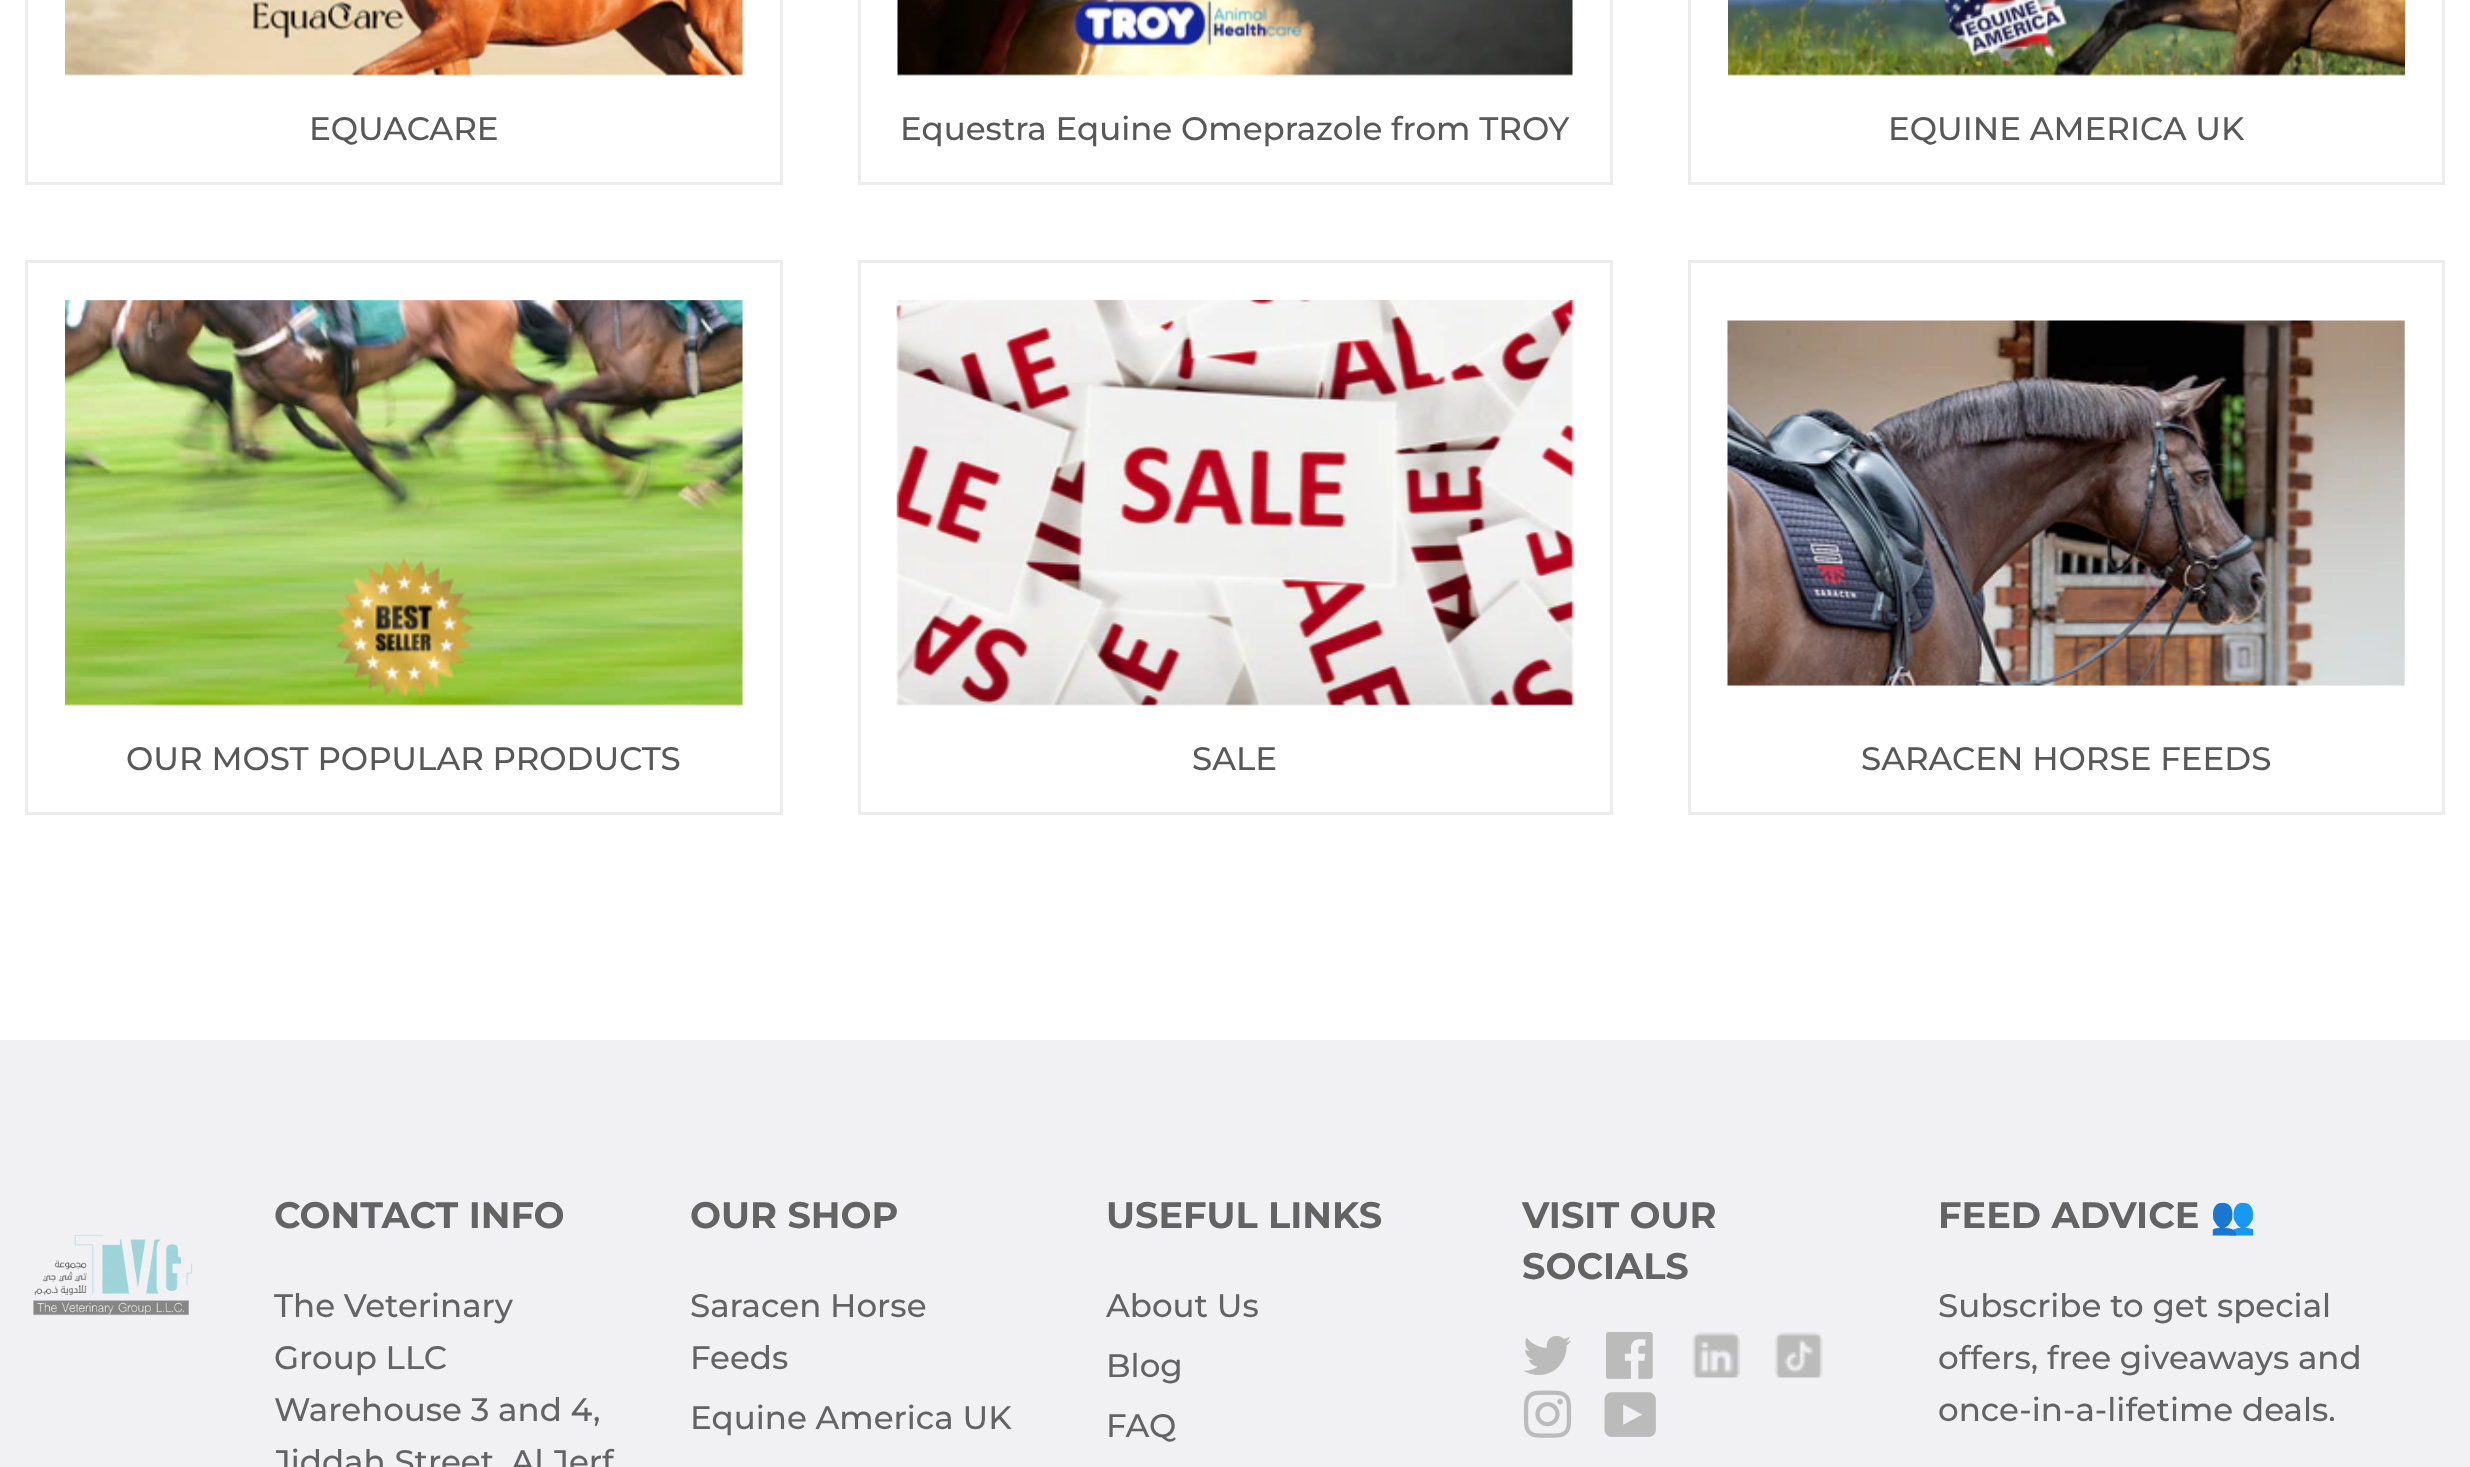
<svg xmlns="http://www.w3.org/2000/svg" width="2470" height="1467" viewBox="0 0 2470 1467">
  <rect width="100%" height="100%" fill="#fff"/>
  <path d="M26.5 -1.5h755v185H26.5z" fill="none" stroke="#ececec" stroke-width="3"/>
  <image x="65" y="0" width="678" height="76" href="img/1.png"/>
  <path d="M859.5 -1.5h752v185H859.5z" fill="none" stroke="#ececec" stroke-width="3"/>
  <image x="897" y="0" width="676" height="76" href="img/2.png"/>
  <path d="M1689.5 -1.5h754v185H1689.5z" fill="none" stroke="#ececec" stroke-width="3"/>
  <image x="1728" y="0" width="677" height="76" href="img/3.png"/>
  <path d="M26.5 261.5h755v552H26.5z" fill="none" stroke="#ececec" stroke-width="3"/>
  <image x="65" y="300" width="678" height="406" href="img/4.png"/>
  <path d="M859.5 261.5h752v552H859.5z" fill="none" stroke="#ececec" stroke-width="3"/>
  <image x="896" y="299" width="679" height="407" href="img/5.png"/>
  <path d="M1689.5 261.5h754v552H1689.5z" fill="none" stroke="#ececec" stroke-width="3"/>
  <image x="1727" y="320" width="678" height="366" href="img/6.png"/>
  <path d="M0 1040h2470v427H0z" fill="#f1f1f3"/>
  <image x="33" y="1234" width="160" height="82" href="img/7.png"/>
  <image x="1523" y="1335" width="48" height="40" href="img/8.png"/>
  <image x="1606" y="1332" width="47" height="47" href="img/9.png"/>
  <image x="1692" y="1332" width="48" height="46" href="img/10.png"/>
  <image x="1774" y="1332" width="49" height="46" href="img/11.png"/>
  <image x="1523" y="1390" width="49" height="48" href="img/12.png"/>
  <image x="1604" y="1392" width="52" height="45" href="img/13.png"/>
  <g font-family="Montserrat" font-size="32.5" font-weight="500" fill="#585858">
    <text x="309" y="140">EQUACARE</text>
    <text x="900" y="140">Equestra Equine Omeprazole from TROY</text>
    <text x="1888" y="140">EQUINE AMERICA UK</text>
    <text x="126" y="770">OUR MOST POPULAR PRODUCTS</text>
    <text x="1192" y="770">SALE</text>
    <text x="1861" y="770">SARACEN HORSE FEEDS</text>
  </g>
  <text x="274" y="1228" font-family="Montserrat" font-size="36.75" font-weight="bold" fill="#636363">CONTACT INFO</text>
  <g font-family="Montserrat" font-size="32.5" font-weight="500" fill="#636363">
    <text x="274" y="1317">The Veterinary</text>
    <text x="274" y="1369">Group LLC</text>
    <text x="274" y="1421">Warehouse 3 and 4,</text>
    <text x="274" y="1473">Jiddah Street, Al Jerf</text>
  </g>
  <text x="690" y="1228" font-family="Montserrat" font-size="36.75" font-weight="bold" fill="#636363">OUR SHOP</text>
  <g font-family="Montserrat" font-size="32.5" font-weight="500" fill="#636363">
    <text x="690" y="1317">Saracen Horse</text>
    <text x="690" y="1369">Feeds</text>
    <text x="690" y="1429">Equine America UK</text>
  </g>
  <text x="1106" y="1228" font-family="Montserrat" font-size="36.75" font-weight="bold" fill="#636363">USEFUL LINKS</text>
  <g font-family="Montserrat" font-size="32.5" font-weight="500" fill="#636363">
    <text x="1106" y="1317">About Us</text>
    <text x="1106" y="1377">Blog</text>
    <text x="1106" y="1437">FAQ</text>
  </g>
  <g font-family="Montserrat" font-size="36.75" font-weight="bold" fill="#636363">
    <text x="1522" y="1228">VISIT OUR</text>
    <text x="1522" y="1279">SOCIALS</text>
    <text x="1938" y="1228">FEED ADVICE</text>
  </g>
  <text x="2210" y="1228" font-family="Noto Color Emoji" font-size="36.75" font-weight="bold" fill="#636363">👥</text>
  <g font-family="Montserrat" font-size="32.5" font-weight="500" fill="#636363">
    <text x="1938" y="1317">Subscribe to get special</text>
    <text x="1938" y="1369">offers, free giveaways and</text>
    <text x="1938" y="1421">once-in-a-lifetime deals.</text>
  </g>
</svg>
